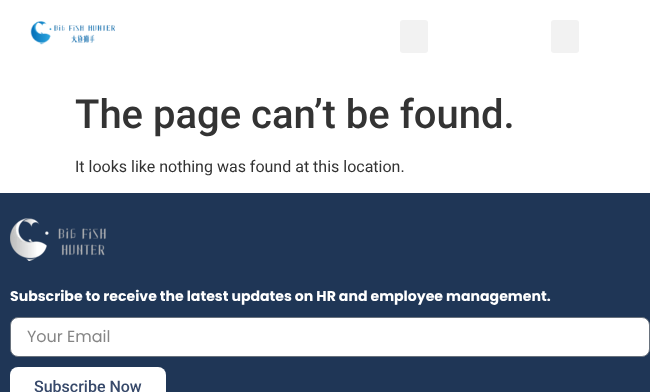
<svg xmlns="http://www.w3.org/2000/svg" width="650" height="392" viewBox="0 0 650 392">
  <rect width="100%" height="100%" fill="#fff"/>
  <image x="30" y="21" width="85" height="24" href="img/1.png"/>
  <rect x="400" y="20" width="28" height="33" rx="3" fill="#f2f2f2"/>
  <rect x="551" y="20" width="28" height="33" rx="3" fill="#f2f2f2"/>
  <path d="M0 193h650v199H0z" fill="#1f3656"/>
  <image x="10" y="218" width="96" height="43" href="img/2.png"/>
  <rect x="10.5" y="317.5" width="639" height="39" rx="7.5" fill="#fff" stroke="#69727d"/>
  <rect x="10" y="367" width="156" height="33" rx="8" fill="#fff"/>
  <text x="75" y="128" font-family="Roboto" font-size="40" font-weight="500" fill="#333">The page can’t be found.</text>
  <text x="75" y="172" font-family="Roboto" font-size="16" fill="#333">It looks like nothing was found at this location.</text>
  <text x="10" y="301" font-family="Poppins" font-size="14.1" font-weight="bold" fill="#fff">Subscribe to receive the latest updates on HR and employee management.</text>
  <text x="27" y="342" font-family="Poppins" font-size="16" fill="#858585">Your Email</text>
  <text x="34" y="392" font-family="Roboto" font-size="16" font-weight="500" fill="#37496a">Subscribe Now</text>
</svg>
